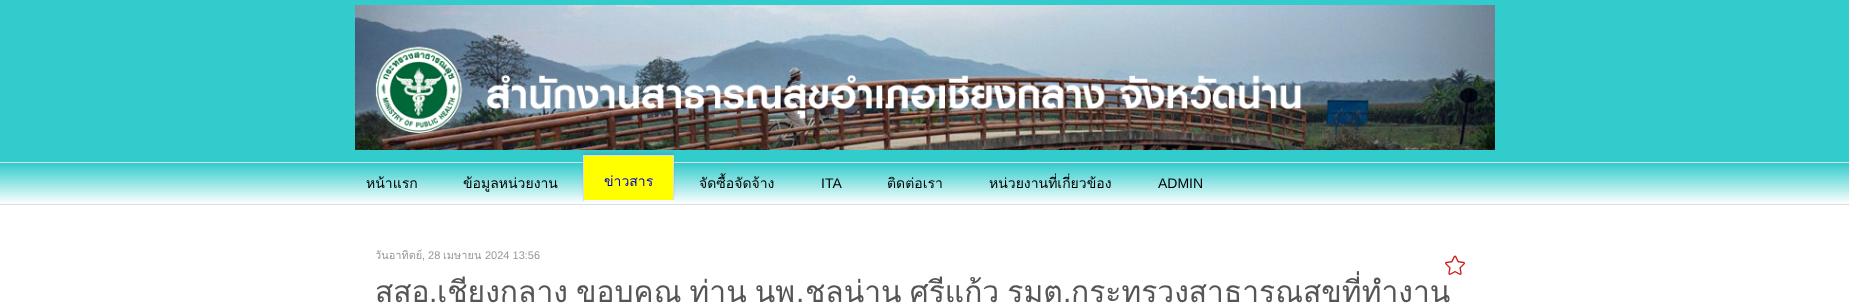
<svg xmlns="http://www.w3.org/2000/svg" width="1849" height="303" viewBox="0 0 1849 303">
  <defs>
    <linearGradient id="g1" gradientUnits="userSpaceOnUse" x1="925" y1="204" x2="925" y2="163"><stop offset="0" stop-color="#fff"/><stop offset="0.99" stop-color="#3cc"/></linearGradient>
  </defs>
  <rect width="100%" height="100%" fill="#fff"/>
  <path d="M0 0h1849v162H0z" fill="#3cc"/>
  <image x="355" y="5" width="1140" height="145" href="img/1.png"/>
  <path d="M0 163h1849v41H0z" fill="url(#g1)"/>
  <path d="M0 162h1849v1H0z" fill="#ddd"/>
  <path d="M0 204h1849v1H0z" fill="#ddd"/>
  <path d="M583 152h91v46H583z" fill="#3333331c" filter="blur(1.5px)"/>
  <path d="M584 156h89v44H584z" fill="#ff0"/>
  <path d="M583 155h91v1H583z" fill="#ddd"/>
  <path d="M673 155h1v46H673z" fill="#ddd"/>
  <path d="M583 200h91v1H583z" fill="#fff"/>
  <path d="M583 155h1v46H583z" fill="#ddd"/>
  <g font-family="Loma" font-size="14" fill="#000">
    <text x="366" y="188">หน้าแรก</text>
    <text x="463" y="188">ข้อมูลหน่วยงาน</text>
  </g>
  <text x="604" y="186" font-family="Loma" font-size="14" fill="#00c">ข่าวสาร</text>
  <text x="699" y="188" font-family="Loma" font-size="14" fill="#000">จัดซื้อจัดจ้าง</text>
  <text x="821" y="188" font-family="Liberation Sans" font-size="14" fill="#000">ITA</text>
  <g font-family="Loma" font-size="14" fill="#000">
    <text x="887" y="188">ติดต่อเรา</text>
    <text x="989" y="188">หน่วยงานที่เกี่ยวข้อง</text>
  </g>
  <text x="1158" y="188" font-family="Liberation Sans" font-size="14" fill="#000">ADMIN</text>
  <text x="375" y="259" font-family="Loma" font-size="11" fill="#999">วันอาทิตย์</text>
  <text x="422" y="259" font-family="Liberation Sans" font-size="11" fill="#999">, 28</text>
  <text x="443" y="259" font-family="Loma" font-size="11" fill="#999">เมษายน</text>
  <text x="485" y="259" font-family="Liberation Sans" font-size="11" fill="#999">2024 13:56</text>
  <g font-family="Loma" font-size="30" fill="#555">
    <text x="375" y="302">สสอ</text>
    <text x="805" y="302" word-spacing="-2">ชลน่าน ศรีแก้ว รมต</text>
    <text x="1071" y="302">กระทรวงสาธารณสุขที่ทำงาน</text>
  </g>
  <text x="429" y="302" font-family="Liberation Sans" font-size="30" fill="#555">.</text>
  <text x="437" y="302" word-spacing="-2" font-family="Loma" font-size="30" fill="#555">เชียงกลาง ขอบคุณ ท่าน นพ</text>
  <g font-family="Liberation Sans" font-size="30" fill="#555">
    <text x="796" y="302">.</text>
    <text x="1063" y="302">.</text>
  </g>
  <image x="1445" y="255" width="20" height="20" href="img/2.png"/>
</svg>
